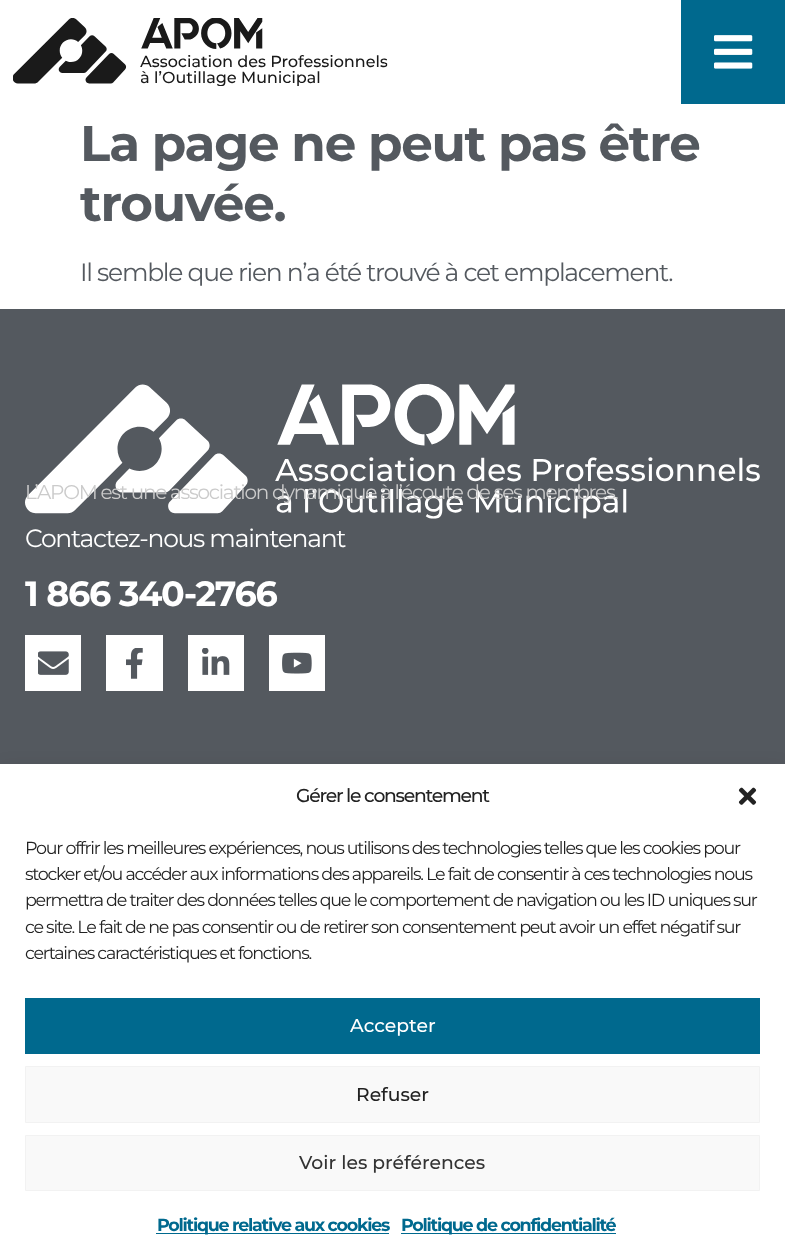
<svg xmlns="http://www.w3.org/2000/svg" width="785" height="1259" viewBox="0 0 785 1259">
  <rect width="100%" height="100%" fill="#fff"/>
  <image x="13" y="18" width="375" height="68" href="img/1.png"/>
  <path d="M681 0h104v104H681z" fill="#00698e"/>
  <image x="714" y="35" width="39" height="34" href="img/2.png"/>
  <path d="M0 309h785v455H0z" fill="#54595f"/>
  <image x="25" y="384" width="735" height="135" href="img/3.png"/>
  <path d="M25 635h56v56H25z" fill="#fff"/>
  <image x="38" y="651" width="31" height="24" href="img/4.png"/>
  <path d="M106 635h57v56H106z" fill="#fff"/>
  <image x="126" y="648" width="17" height="31" href="img/5.png"/>
  <path d="M188 635h56v56H188z" fill="#fff"/>
  <image x="202" y="648" width="28" height="27" href="img/6.png"/>
  <path d="M269 635h56v56H269z" fill="#fff"/>
  <image x="282" y="652" width="30" height="22" href="img/7.png"/>
  <path d="M0 776h785v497H0z" fill="#00000030" filter="blur(12.5px)"/>
  <path d="M0 764h785v495H0z" fill="#fff"/>
  <image x="738" y="787" width="19" height="18" href="img/8.png"/>
  <path d="M25 998h735v56H25z" fill="#00698e"/>
  <path d="M25.5 1066.5h734v56H25.5z" fill="#f9f9f9" stroke="#f2f2f2"/>
  <path d="M25.5 1135.5h734v55H25.5z" fill="#f9f9f9" stroke="#f2f2f2"/>
  <path d="M156 1233h233v1H156z" fill="#00698e"/>
  <path d="M401 1233h215v1H401z" fill="#00698e"/>
  <g font-family="Montserrat" font-size="50" font-weight="bold" letter-spacing="-1.25" fill="#54595f">
    <text x="80" y="161">La page ne peut pas être</text>
    <text x="80" y="221">trouvée.</text>
  </g>
  <text x="80" y="281" font-family="Montserrat" font-size="25" letter-spacing="-1.25" fill="#54595f">Il semble que rien n’a été trouvé à cet emplacement.</text>
  <text x="25" y="499" font-family="Montserrat" font-size="20" letter-spacing="-1.25" fill="#cbcbcb">L’APOM est une association dynamique à l’écoute de ses membres.</text>
  <text x="25" y="547" font-family="Montserrat" font-size="25" letter-spacing="-1.25" fill="#fff">Contactez-nous maintenant</text>
  <text x="25" y="606" font-family="Montserrat" font-size="35" font-weight="bold" letter-spacing="-1.25" fill="#fff">1 866 340-2766</text>
  <text x="296" y="802" font-family="Montserrat" font-size="18.75" font-weight="500" letter-spacing="-1.25" fill="#222">Gérer le consentement</text>
  <g font-family="Montserrat" font-size="17.5" letter-spacing="-1.25" fill="#222">
    <text x="25" y="854">Pour offrir les meilleures expériences, nous utilisons des technologies telles que les cookies pour</text>
    <text x="25" y="880">stocker et/ou accéder aux informations des appareils. Le fait de consentir à ces technologies nous</text>
    <text x="25" y="906">permettra de traiter des données telles que le comportement de navigation ou les ID uniques sur</text>
    <text x="25" y="933">ce site. Le fait de ne pas consentir ou de retirer son consentement peut avoir un effet négatif sur</text>
    <text x="25" y="959">certaines caractéristiques et fonctions.</text>
  </g>
  <text x="350" y="1032" font-family="Montserrat" font-size="18.75" font-weight="500" fill="#fff">Accepter</text>
  <text x="356" y="1101" font-family="Montserrat" font-size="18.75" font-weight="500" fill="#222">Refuser</text>
  <text x="299" y="1169" font-family="Montserrat" font-size="18.75" font-weight="500" fill="#333">Voir les préférences</text>
  <g font-family="Montserrat" font-size="17.5" font-weight="bold" letter-spacing="-1.25" fill="#00698e">
    <text x="157" y="1231">Politique relative aux cookies</text>
    <text x="401" y="1231">Politique de confidentialité</text>
  </g>
</svg>
